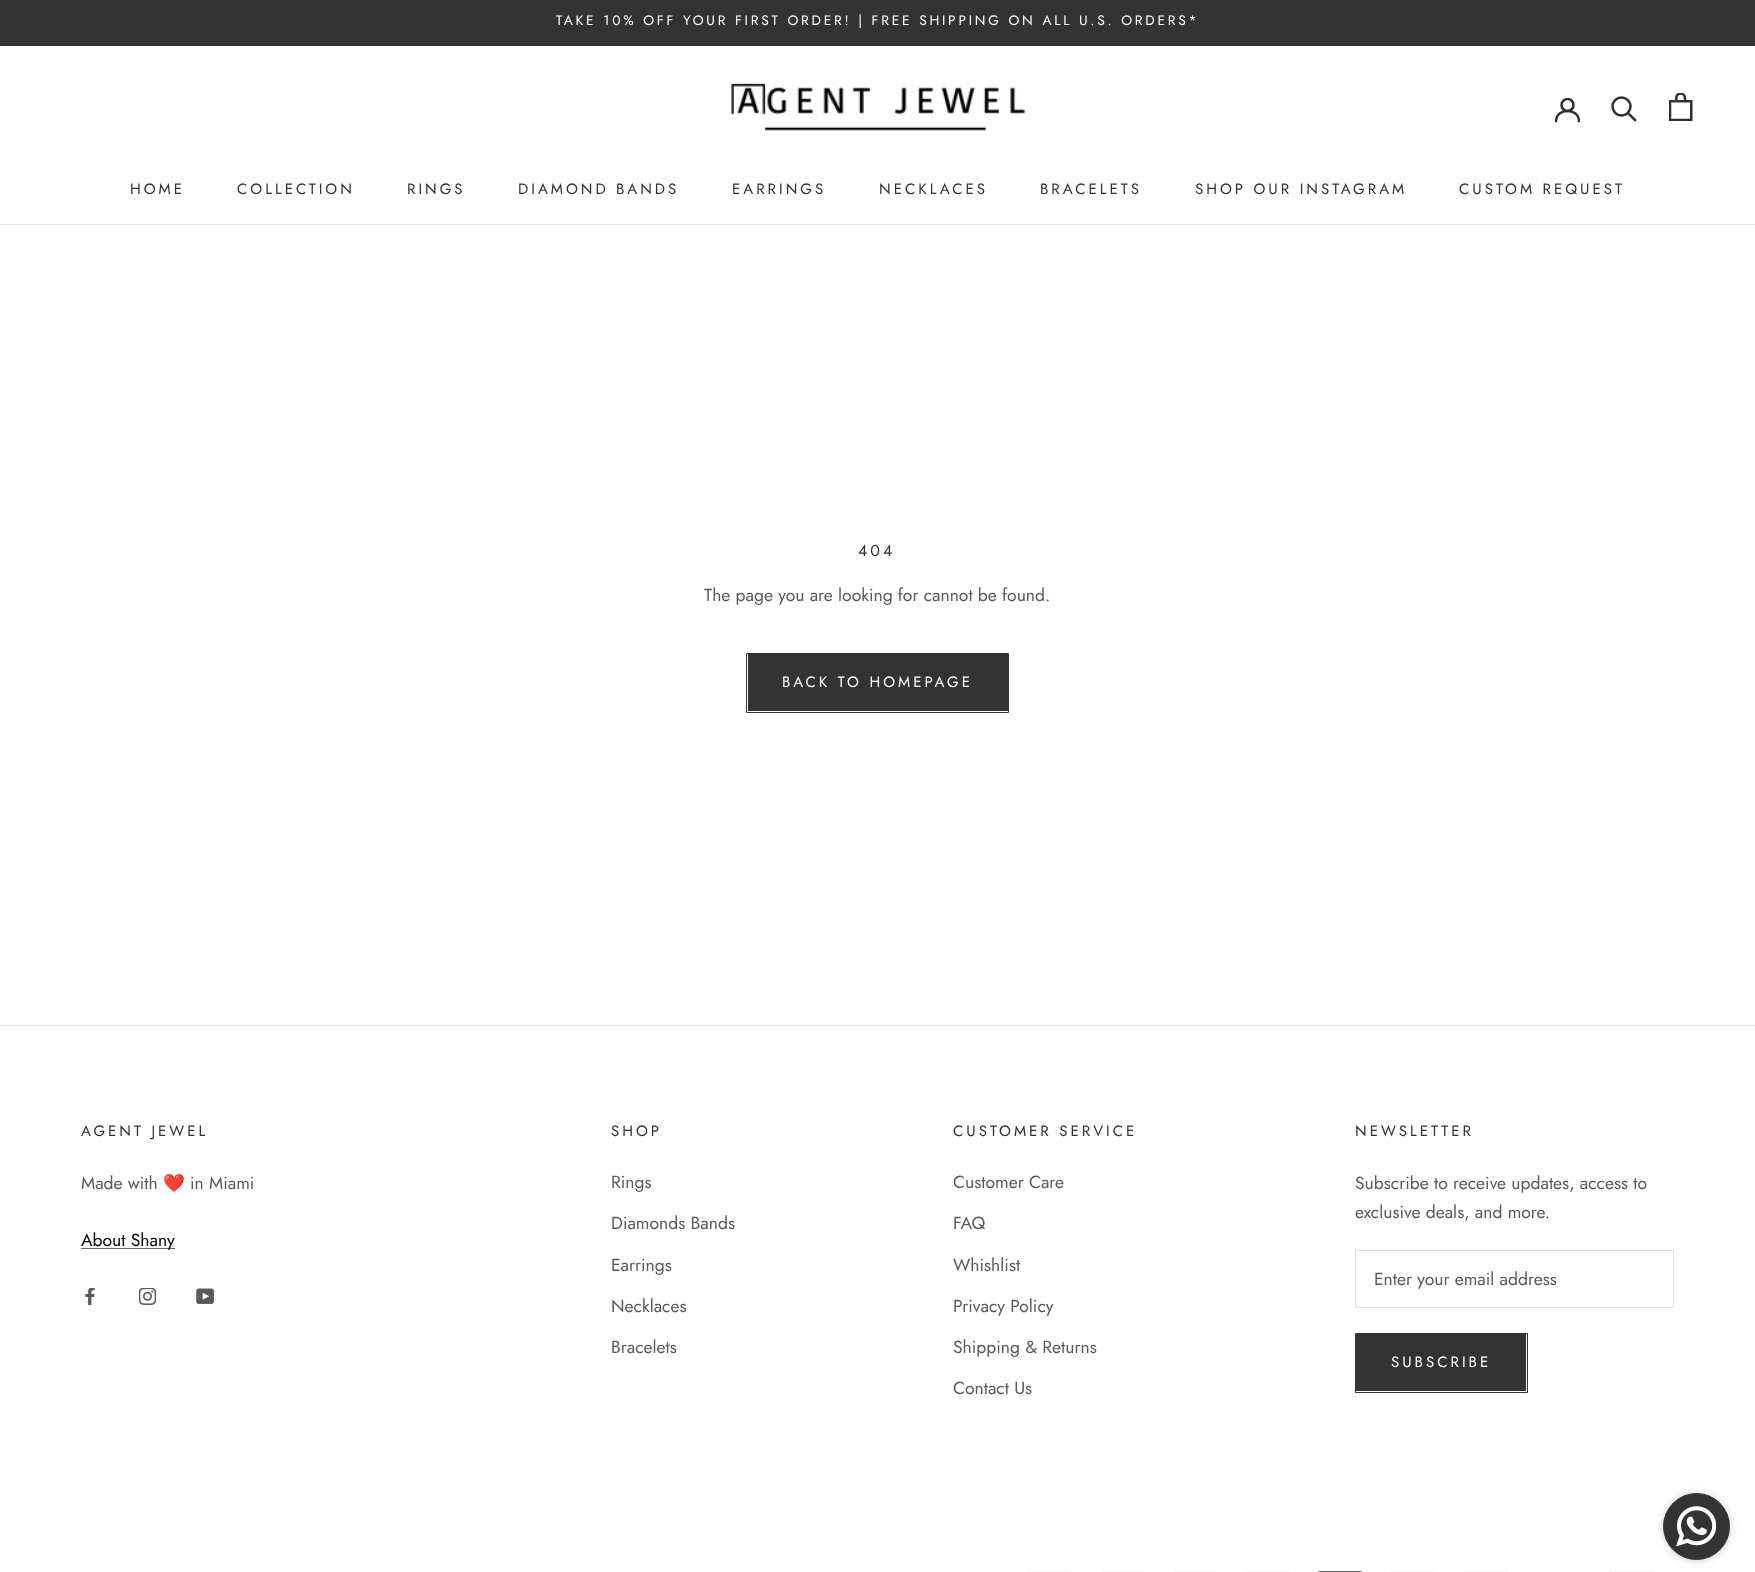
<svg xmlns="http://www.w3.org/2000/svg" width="1755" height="1572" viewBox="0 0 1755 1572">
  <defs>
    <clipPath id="clip1"><path d="M1555 98h25v25H1555z"/></clipPath>
  </defs>
  <rect width="100%" height="100%" fill="#fff"/>
  <path d="M0 0h1755v46H0z" fill="#333"/>
  <path d="M0 224h1755v1H0z" fill="#e0e0e0"/>
  <image x="731" y="83" width="295" height="48" href="img/1.png"/>
  <g clip-path="url(#clip1)">
    <path d="M1556 121C1556 107.5 1579 107.5 1579 121" fill="none" stroke="#303030" stroke-width="2.5" stroke-linecap="square"/>
    <circle cx="1567.5" cy="105" r="6" fill="none" stroke="#303030" stroke-width="2.5"/>
  </g>
  <path d="M1635 120L1628 113" fill="none" stroke="#303030" stroke-width="2.5" stroke-linecap="square"/>
  <circle cx="1621.5" cy="106.5" r="9" fill="none" stroke="#303030" stroke-width="2.5"/>
  <image x="1669" y="93" width="24" height="28" href="img/2.png"/>
  <path d="M746.5 653.5h262v59H746.5z" fill="none" stroke="#333"/>
  <path d="M748 654h260v57H748z" fill="#333"/>
  <path d="M0 1025h1755v1H0z" fill="#e0e0e0"/>
  <path d="M81 1248h94v1H81z" fill="#666"/>
  <image x="85" y="1288" width="10" height="17" href="img/3.png"/>
  <image x="139" y="1288" width="17" height="17" href="img/4.png"/>
  <image x="196" y="1288" width="18" height="16" href="img/5.png"/>
  <path d="M1355.5 1250.5h318v57H1355.5z" fill="none" stroke="#e0e0e0"/>
  <path d="M1355.5 1333.5h172v59H1355.5z" fill="none" stroke="#333"/>
  <path d="M1356 1334h170v57H1356z" fill="#333"/>
  <path d="M1027 1571h43v1H1027z" fill="#f5f5f5"/>
  <path d="M1101 1571h43v1H1101z" fill="#f5f5f5"/>
  <image x="1173" y="1571" width="43" height="1" href="img/6.png"/>
  <path d="M1246 1571h43v1H1246z" fill="#f5f5f5"/>
  <image x="1317" y="1571" width="46" height="1" href="img/7.png"/>
  <path d="M1391 1571h43v1H1391z" fill="#f5f5f5"/>
  <path d="M1465 1571h43v1H1465z" fill="#f5f5f5"/>
  <image x="1609" y="1571" width="45" height="1" href="img/8.png"/>
  <rect x="1663" y="1494" width="67" height="67" rx="33.5" fill="#1b1b1b33" filter="blur(4px)"/>
  <circle cx="1696.5" cy="1526.5" r="33" fill="#333" stroke="#333"/>
  <image x="1676" y="1506" width="40" height="40" href="img/9.png"/>
  <text x="556" y="25" font-family="Jost" font-size="13.75" letter-spacing="2.75" fill="#fff">TAKE 10% OFF YOUR FIRST ORDER! | FREE SHIPPING ON ALL U.S. ORDERS*</text>
  <g font-family="Jost" font-size="15" letter-spacing="3" fill="#303030">
    <text x="130" y="194">HOME</text>
    <text x="237" y="194">COLLECTION</text>
    <text x="407" y="194">RINGS</text>
    <text x="518" y="194">DIAMOND BANDS</text>
    <text x="732" y="194">EARRINGS</text>
    <text x="879" y="194">NECKLACES</text>
    <text x="1040" y="194">BRACELETS</text>
    <text x="1195" y="194">SHOP OUR INSTAGRAM</text>
    <text x="1459" y="194">CUSTOM REQUEST</text>
  </g>
  <text x="858" y="556" font-family="Jost" font-size="16" letter-spacing="3" fill="#303030">404</text>
  <text x="704" y="601" font-family="Jost" font-size="17.5" fill="#595959">The page you are looking for cannot be found.</text>
  <text x="782" y="687" font-family="Jost" font-size="15" letter-spacing="3" fill="#fff">BACK TO HOMEPAGE</text>
  <text x="81" y="1136" font-family="Jost" font-size="15" letter-spacing="3" fill="#303030">AGENT JEWEL</text>
  <text x="81" y="1189" font-family="Jost" font-size="17.5" fill="#595959">Made with</text>
  <text x="163" y="1189" font-family="Noto Color Emoji" font-size="17.5" fill="#595959">❤️</text>
  <text x="190" y="1189" font-family="Jost" font-size="17.5" fill="#595959">in Miami</text>
  <text x="81" y="1246" font-family="Jost" font-size="17.5" fill="#000">About Shany</text>
  <text x="611" y="1136" font-family="Jost" font-size="15" letter-spacing="3" fill="#303030">SHOP</text>
  <g font-family="Jost" font-size="17.5" fill="#595959">
    <text x="611" y="1188">Rings</text>
    <text x="611" y="1229">Diamonds Bands</text>
    <text x="611" y="1271">Earrings</text>
    <text x="611" y="1312">Necklaces</text>
    <text x="611" y="1353">Bracelets</text>
  </g>
  <text x="953" y="1136" font-family="Jost" font-size="15" letter-spacing="3" fill="#303030">CUSTOMER SERVICE</text>
  <g font-family="Jost" font-size="17.5" fill="#595959">
    <text x="953" y="1188">Customer Care</text>
    <text x="953" y="1229">FAQ</text>
    <text x="953" y="1271">Whishlist</text>
    <text x="953" y="1312">Privacy Policy</text>
    <text x="953" y="1353">Shipping &amp; Returns</text>
    <text x="953" y="1394">Contact Us</text>
  </g>
  <text x="1355" y="1136" font-family="Jost" font-size="15" letter-spacing="3" fill="#303030">NEWSLETTER</text>
  <g font-family="Jost" font-size="17.5" fill="#595959">
    <text x="1355" y="1189">Subscribe to receive updates, access to</text>
    <text x="1355" y="1218">exclusive deals, and more.</text>
    <text x="1374" y="1285">Enter your email address</text>
  </g>
  <text x="1391" y="1367" font-family="Jost" font-size="15" letter-spacing="3" fill="#fff">SUBSCRIBE</text>
</svg>
